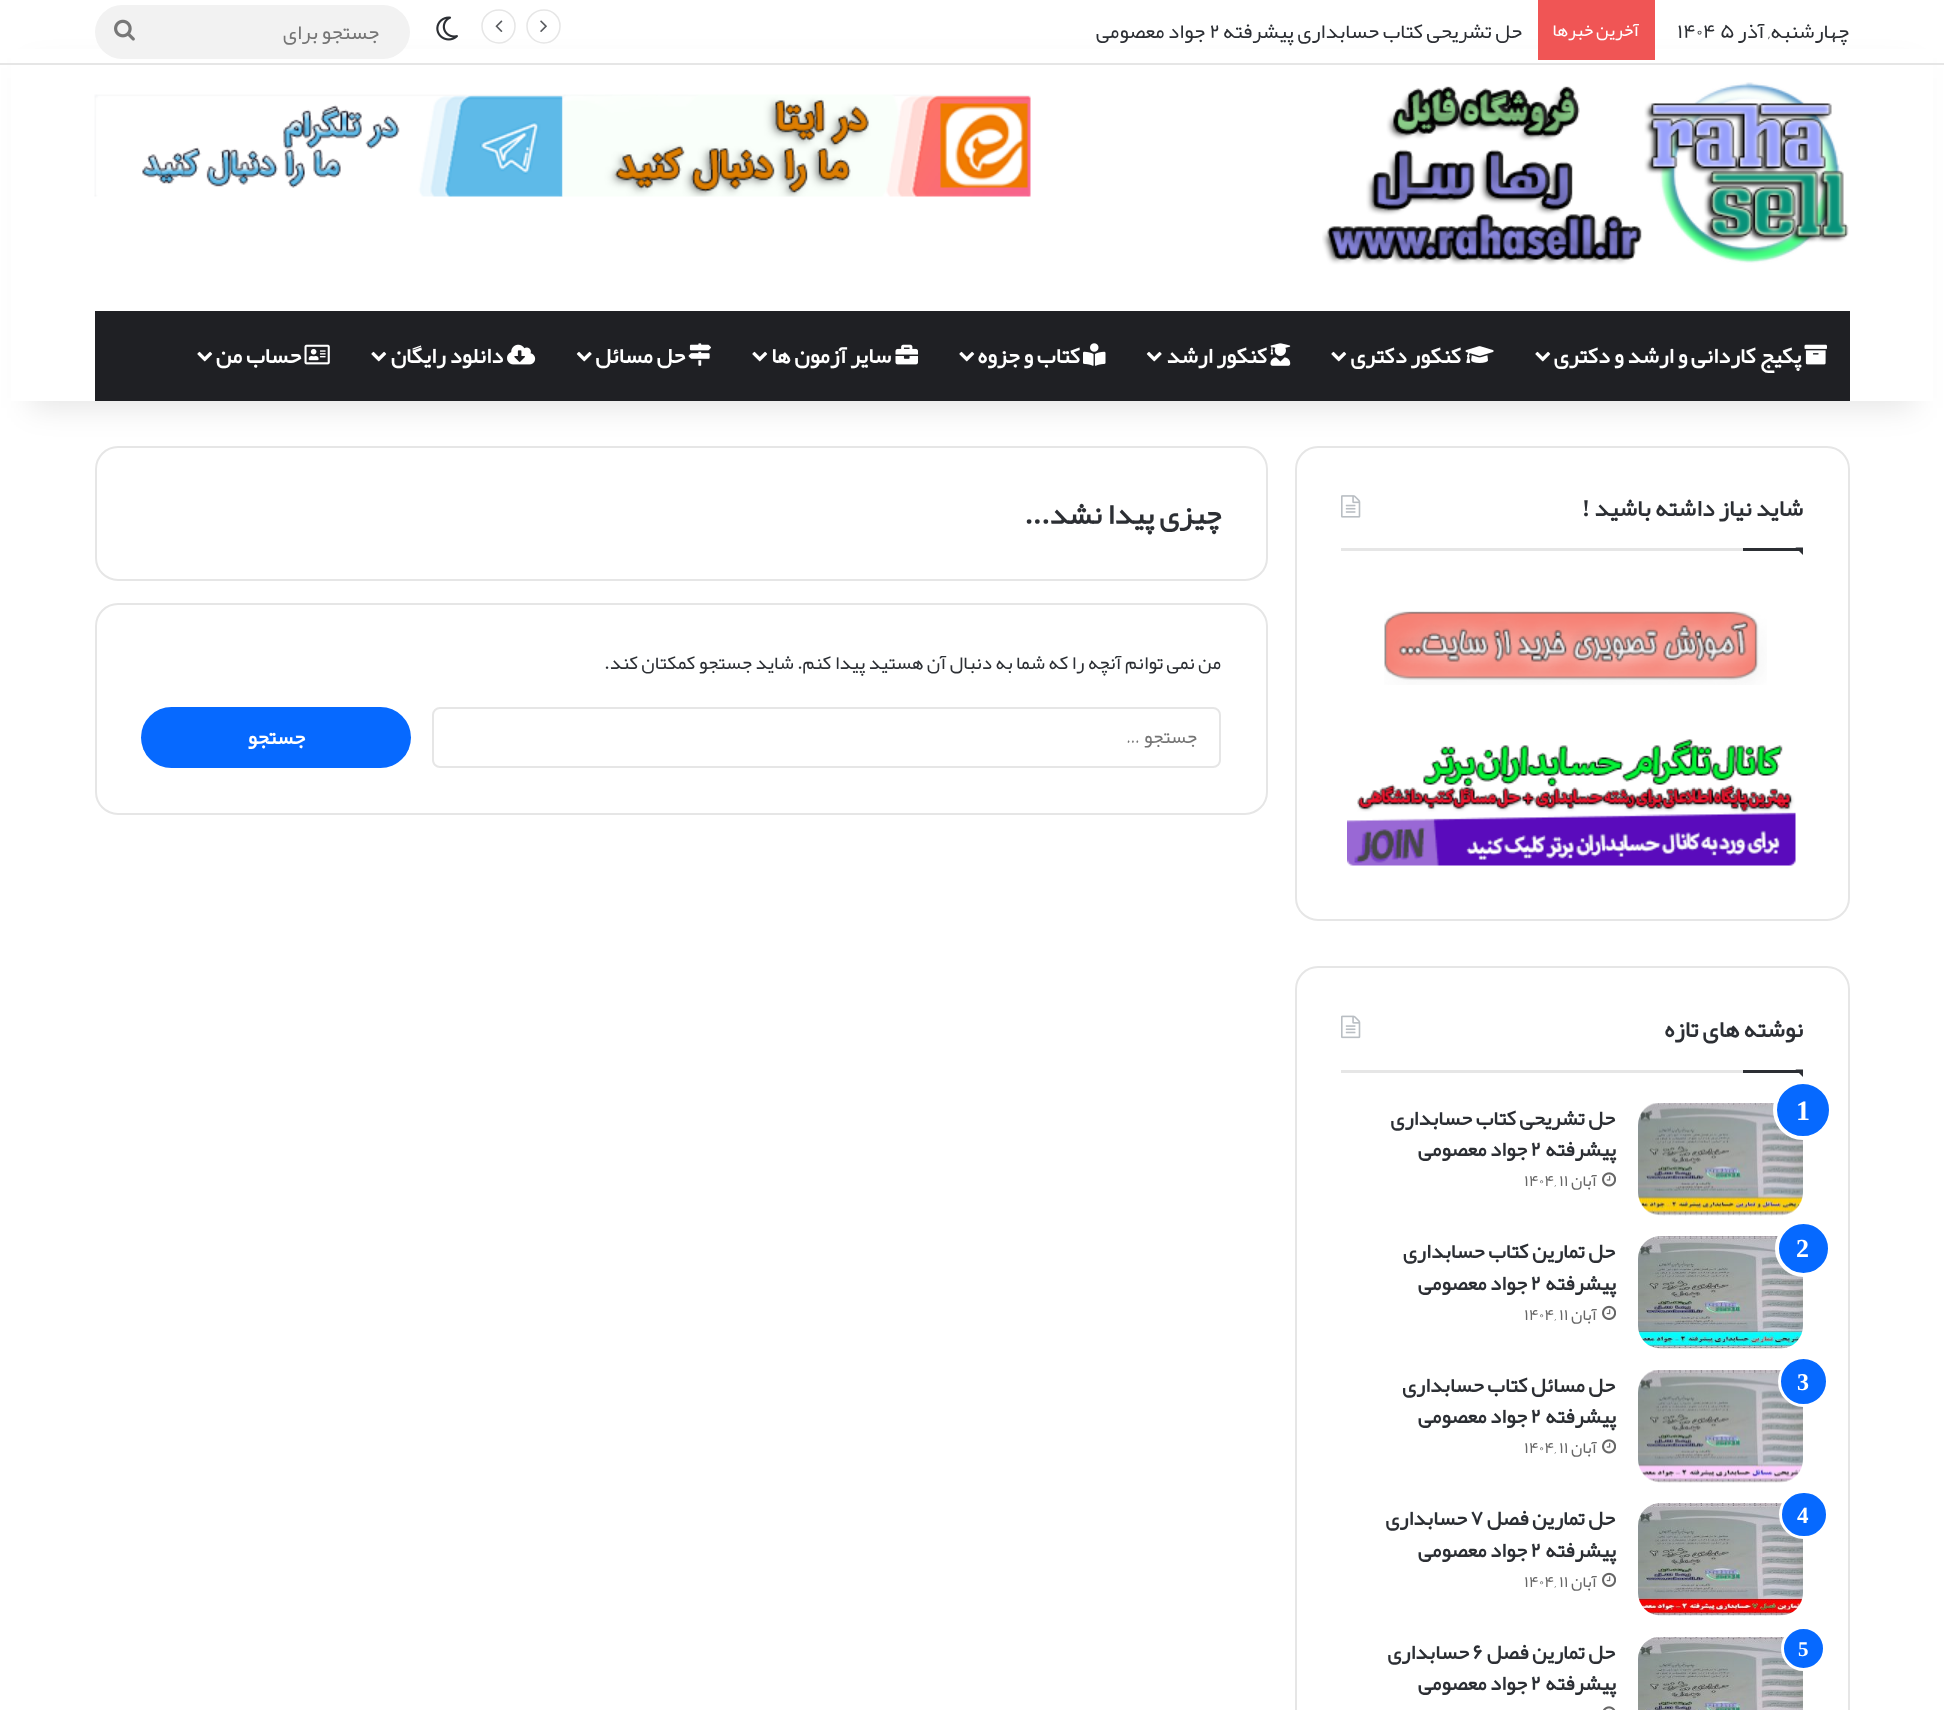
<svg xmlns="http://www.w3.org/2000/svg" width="1944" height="1710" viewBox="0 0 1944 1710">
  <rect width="100%" height="100%" fill="#fff"/>
  <rect x="1296" y="447" width="553" height="473" rx="22" fill="none" stroke="#e6e6e6" stroke-width="2"/>
  <rect x="96" y="447" width="1171" height="133" rx="22" fill="none" stroke="#e6e6e6" stroke-width="2"/>
  <path d="M30 68h1884v340H30z" fill="#0000001a" filter="blur(15px)"/>
  <path d="M11 49h1922v352H11z" fill="#fff"/>
  <path d="M0 63h1944v2H0z" fill="#e6e6e6"/>
  <path d="M1538 0h117v60H1538z" fill="#f05555"/>
  <path d="M544 43C534.5 43 527 35.5 527 26C527 17 534.5 10 544 10C553 10 560 17 560 26C560 35.5 553 43 544 43Z" fill="none" stroke="#e6e6e6" stroke-width="1.5"/>
  <image x="540" y="20" width="7" height="12" href="img/1.png"/>
  <path d="M499 43C489.5 43 482 35.5 482 26C482 17 489.5 10 499 10C508 10 515 17 515 26C515 35.5 508 43 499 43Z" fill="none" stroke="#e6e6e6" stroke-width="1.5"/>
  <image x="495" y="20" width="8" height="12" href="img/2.png"/>
  <image x="436" y="16" width="22" height="25" href="img/3.png"/>
  <rect x="95" y="5" width="315" height="54" rx="27" fill="#f2f2f2"/>
  <image x="114" y="19" width="21" height="22" href="img/4.png"/>
  <image x="1322" y="82" width="527" height="183" href="img/5.png"/>
  <image x="94" y="94" width="469" height="103" href="img/7.png"/>
  <image x="562" y="94" width="469" height="103" href="img/6.png"/>
  <path d="M95 311h1755v90H95z" fill="#1f2024"/>
  <image x="1804" y="344" width="23" height="21" href="img/8.png"/>
  <image x="1535" y="351" width="16" height="11" href="img/9.png"/>
  <image x="1465" y="346" width="29" height="17" href="img/10.png"/>
  <image x="1331" y="351" width="16" height="11" href="img/9.png"/>
  <image x="1270" y="343" width="21" height="23" href="img/11.png"/>
  <image x="1146" y="351" width="16" height="11" href="img/12.png"/>
  <image x="1083" y="343" width="23" height="23" href="img/13.png"/>
  <image x="959" y="351" width="16" height="11" href="img/9.png"/>
  <image x="895" y="344" width="23" height="21" href="img/14.png"/>
  <image x="752" y="351" width="16" height="11" href="img/9.png"/>
  <image x="688" y="343" width="23" height="23" href="img/15.png"/>
  <image x="576" y="351" width="16" height="11" href="img/12.png"/>
  <image x="507" y="344" width="29" height="21" href="img/16.png"/>
  <image x="371" y="351" width="16" height="11" href="img/9.png"/>
  <image x="304" y="344" width="26" height="21" href="img/17.png"/>
  <image x="197" y="351" width="16" height="11" href="img/9.png"/>
  <path d="M1341 548h402v3H1341z" fill="#e6e6e6"/>
  <image x="1341" y="495" width="20" height="23" href="img/18.png"/>
  <path d="M1795.5 547.5H1803V555Z" fill="#2c2f34"/>
  <path d="M1743 548h60v3H1743z" fill="#2c2f34"/>
  <image x="1384" y="611" width="383" height="74" href="img/19.png"/>
  <image x="1347" y="739" width="449" height="127" href="img/20.png"/>
  <rect x="1296" y="967" width="553" height="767" rx="22" fill="none" stroke="#e6e6e6" stroke-width="2"/>
  <path d="M1341 1070h402v3H1341z" fill="#e6e6e6"/>
  <image x="1341" y="1015" width="20" height="24" href="img/21.png"/>
  <path d="M1795.5 1069.5H1803V1077Z" fill="#2c2f34"/>
  <path d="M1743 1070h60v3H1743z" fill="#2c2f34"/>
  <image x="1638" y="1103" width="165" height="113" href="img/22.png"/>
  <circle cx="1803" cy="1110" r="28" fill="#0669ff" stroke="#fff" stroke-width="4"/>
  <image x="1602" y="1172" width="14" height="15" href="img/23.png"/>
  <image x="1638" y="1236" width="165" height="113" href="img/24.png"/>
  <circle cx="1803.5" cy="1248.5" r="26.5" fill="#0669ff" stroke="#fff" stroke-width="4"/>
  <image x="1602" y="1305" width="14" height="15" href="img/25.png"/>
  <image x="1638" y="1370" width="165" height="113" href="img/26.png"/>
  <circle cx="1803.5" cy="1381.5" r="24" fill="#0669ff" stroke="#fff" stroke-width="3"/>
  <image x="1602" y="1439" width="14" height="15" href="img/23.png"/>
  <image x="1638" y="1503" width="165" height="113" href="img/27.png"/>
  <rect x="1780.5" y="1491.5" width="47" height="46" rx="23" fill="#0669ff" stroke="#fff" stroke-width="3"/>
  <image x="1602" y="1572" width="14" height="15" href="img/25.png"/>
  <image x="1638" y="1637" width="165" height="73" href="img/28.png"/>
  <circle cx="1803.5" cy="1648.5" r="21" fill="#0669ff" stroke="#fff" stroke-width="3"/>
  <image x="1603" y="1706" width="13" height="4" href="img/29.png"/>
  <rect x="96" y="604" width="1171" height="210" rx="22" fill="none" stroke="#e6e6e6" stroke-width="2"/>
  <rect x="433" y="708" width="787" height="59" rx="7" fill="none" stroke="#e6e6e6" stroke-width="2"/>
  <rect x="141" y="707" width="270" height="61" rx="30.5" fill="#0669ff"/>
  <text x="1849" y="38" font-family="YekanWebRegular" font-size="21" direction="rtl" fill="#2c2f34">چهارشنبه, آذر</text>
  <text x="1677" y="38" font-family="YekanWebRegular" font-size="21" fill="#2c2f34">۱۴۰۴ ۵</text>
  <text x="1639" y="36" font-family="YekanWebRegular" font-size="18" direction="rtl" fill="#fff">آخرین خبرها</text>
  <text x="1522" y="38" font-family="YekanWebRegular" font-size="21" direction="rtl" fill="#2c2f34">حل تشریحی کتاب حسابداری پیشرفته</text>
  <text x="1209" y="38" font-family="YekanWebRegular" font-size="21" fill="#2c2f34">۲</text>
  <text x="1205" y="38" font-family="YekanWebRegular" font-size="21" direction="rtl" fill="#2c2f34">جواد معصومی</text>
  <text x="379" y="39" font-family="YekanWebRegular" font-size="21" direction="rtl" fill="#757575">جستجو برای</text>
  <g font-family="YekanWebRegular" font-size="22.5" font-weight="bold" direction="rtl" fill="#fff">
    <text x="1801" y="363">پکیج کاردانی و ارشد و دکتری</text>
    <text x="1461" y="363">کنکور دکتری</text>
    <text x="1267" y="363">کنکور ارشد</text>
    <text x="1080" y="363">کتاب و جزوه</text>
    <text x="891" y="363">سایر آزمون ها</text>
    <text x="685" y="363">حل مسائل</text>
    <text x="503" y="363">دانلود رایگان</text>
    <text x="301" y="363">حساب من</text>
  </g>
  <text x="1803" y="516" font-family="YekanWebRegular" font-size="24" font-weight="bold" direction="rtl" fill="#2c2f34">شاید نیاز داشته باشید</text>
  <text x="1590" y="516" font-family="Liberation Serif" font-size="24" font-weight="bold" direction="rtl" fill="#2c2f34">!</text>
  <text x="1803" y="1037" font-family="YekanWebRegular" font-size="24" font-weight="bold" direction="rtl" fill="#2c2f34">نوشته های تازه</text>
  <text x="1796" y="1120" font-family="Liberation Serif" font-size="28" font-weight="bold" fill="#fff">1</text>
  <g font-family="YekanWebRegular" font-size="21" font-weight="bold" direction="rtl" fill="#2c2f34">
    <text x="1615" y="1125">حل تشریحی کتاب حسابداری</text>
    <text x="1616" y="1156">پیشرفته</text>
  </g>
  <text x="1530" y="1156" font-family="YekanWebRegular" font-size="21" font-weight="bold" fill="#2c2f34">۲</text>
  <text x="1527" y="1156" font-family="YekanWebRegular" font-size="21" font-weight="bold" direction="rtl" fill="#2c2f34">جواد معصومی</text>
  <text x="1597" y="1186" font-family="YekanWebRegular" font-size="16.5" direction="rtl" fill="#666">آبان</text>
  <text x="1524" y="1186" font-family="YekanWebRegular" font-size="16.5" fill="#666">۱۴۰۴, ۱۱</text>
  <text x="1796" y="1257" font-family="Liberation Serif" font-size="26" font-weight="bold" fill="#fff">2</text>
  <g font-family="YekanWebRegular" font-size="21" font-weight="bold" direction="rtl" fill="#2c2f34">
    <text x="1615" y="1258">حل تمارین کتاب حسابداری</text>
    <text x="1616" y="1290">پیشرفته</text>
  </g>
  <text x="1530" y="1290" font-family="YekanWebRegular" font-size="21" font-weight="bold" fill="#2c2f34">۲</text>
  <text x="1527" y="1290" font-family="YekanWebRegular" font-size="21" font-weight="bold" direction="rtl" fill="#2c2f34">جواد معصومی</text>
  <text x="1597" y="1320" font-family="YekanWebRegular" font-size="16.5" direction="rtl" fill="#666">آبان</text>
  <text x="1524" y="1320" font-family="YekanWebRegular" font-size="16.5" fill="#666">۱۴۰۴, ۱۱</text>
  <text x="1797" y="1390" font-family="Liberation Serif" font-size="24" font-weight="bold" fill="#fff">3</text>
  <g font-family="YekanWebRegular" font-size="21" font-weight="bold" direction="rtl" fill="#2c2f34">
    <text x="1615" y="1392">حل مسائل کتاب حسابداری</text>
    <text x="1616" y="1423">پیشرفته</text>
  </g>
  <text x="1530" y="1423" font-family="YekanWebRegular" font-size="21" font-weight="bold" fill="#2c2f34">۲</text>
  <text x="1527" y="1423" font-family="YekanWebRegular" font-size="21" font-weight="bold" direction="rtl" fill="#2c2f34">جواد معصومی</text>
  <text x="1597" y="1453" font-family="YekanWebRegular" font-size="16.5" direction="rtl" fill="#666">آبان</text>
  <text x="1524" y="1453" font-family="YekanWebRegular" font-size="16.5" fill="#666">۱۴۰۴, ۱۱</text>
  <text x="1797" y="1523" font-family="Liberation Serif" font-size="23" font-weight="bold" fill="#fff">4</text>
  <text x="1615" y="1525" font-family="YekanWebRegular" font-size="21" font-weight="bold" direction="rtl" fill="#2c2f34">حل تمارین فصل</text>
  <text x="1470" y="1525" font-family="YekanWebRegular" font-size="21" font-weight="bold" fill="#2c2f34">۷</text>
  <g font-family="YekanWebRegular" font-size="21" font-weight="bold" direction="rtl" fill="#2c2f34">
    <text x="1467" y="1525">حسابداری</text>
    <text x="1616" y="1557">پیشرفته</text>
  </g>
  <text x="1530" y="1557" font-family="YekanWebRegular" font-size="21" font-weight="bold" fill="#2c2f34">۲</text>
  <text x="1527" y="1557" font-family="YekanWebRegular" font-size="21" font-weight="bold" direction="rtl" fill="#2c2f34">جواد معصومی</text>
  <text x="1597" y="1587" font-family="YekanWebRegular" font-size="16.5" direction="rtl" fill="#666">آبان</text>
  <text x="1524" y="1587" font-family="YekanWebRegular" font-size="16.5" fill="#666">۱۴۰۴, ۱۱</text>
  <text x="1798" y="1656" font-family="Liberation Serif" font-size="21" font-weight="bold" fill="#fff">5</text>
  <text x="1615" y="1659" font-family="YekanWebRegular" font-size="21" font-weight="bold" direction="rtl" fill="#2c2f34">حل تمارین فصل</text>
  <text x="1472" y="1659" font-family="YekanWebRegular" font-size="21" font-weight="bold" fill="#2c2f34">۶</text>
  <g font-family="YekanWebRegular" font-size="21" font-weight="bold" direction="rtl" fill="#2c2f34">
    <text x="1469" y="1659">حسابداری</text>
    <text x="1616" y="1690">پیشرفته</text>
  </g>
  <text x="1530" y="1690" font-family="YekanWebRegular" font-size="21" font-weight="bold" fill="#2c2f34">۲</text>
  <text x="1527" y="1690" font-family="YekanWebRegular" font-size="21" font-weight="bold" direction="rtl" fill="#2c2f34">جواد معصومی</text>
  <text x="1221" y="524" font-family="YekanWebRegular" font-size="30" font-weight="bold" direction="rtl" fill="#2c2f34">چیزی پیدا نشد...</text>
  <text x="1221" y="669" font-family="YekanWebRegular" font-size="19.5" direction="rtl" fill="#2c2f34">من نمی توانم آنچه را که شما به دنبال آن هستید پیدا کنم. شاید جستجو کمکتان کند.</text>
  <text x="1197" y="743" font-family="YekanWebRegular" font-size="19.5" direction="rtl" fill="#757575">جستجو …</text>
  <text x="305" y="744" font-family="YekanWebRegular" font-size="21" font-weight="bold" direction="rtl" fill="#fff">جستجو</text>
</svg>
